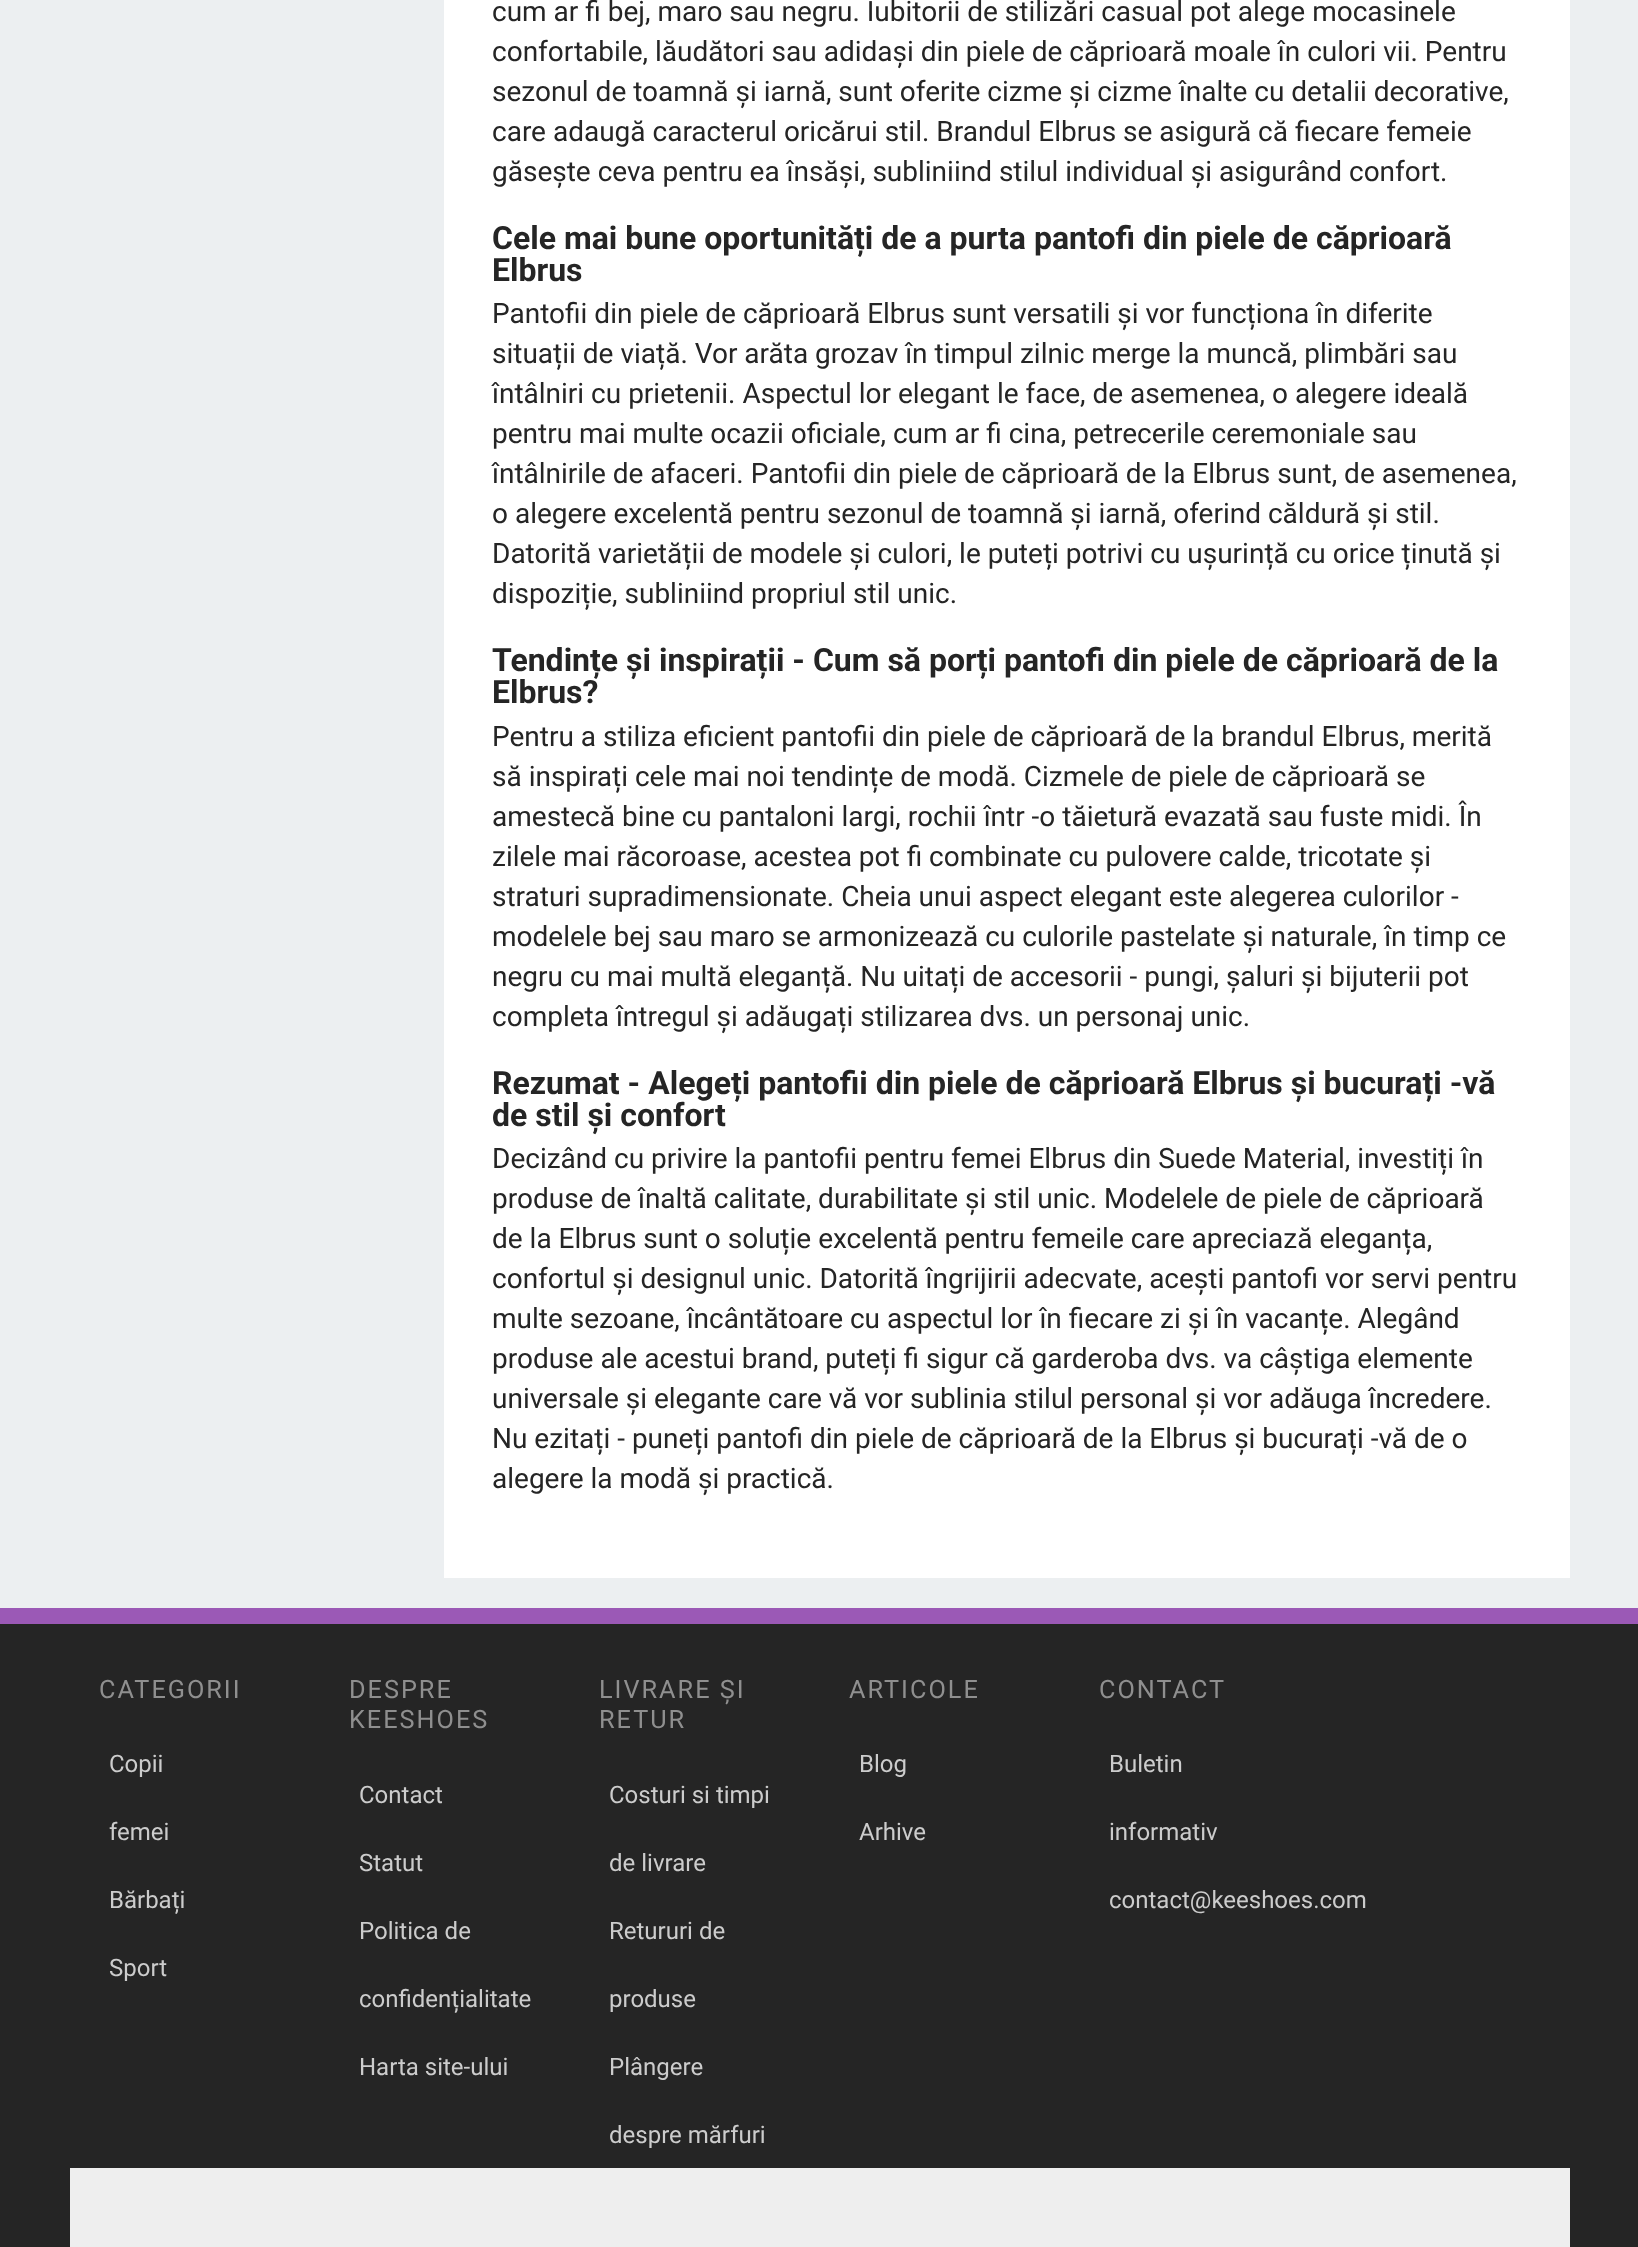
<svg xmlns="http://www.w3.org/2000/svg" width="1638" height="2247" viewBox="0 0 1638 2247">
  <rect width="100%" height="100%" fill="#eceff1"/>
  <path d="M444 0h1126v1578H444z" fill="#fff"/>
  <path d="M0 1624h1638v623H0z" fill="#252525"/>
  <path d="M0 1608h1638v16H0z" fill="#9b59b6"/>
  <path d="M70 2168h1500v79H70z" fill="#eee"/>
  <g font-family="Roboto" font-size="28" fill="#252525">
    <text x="492" y="21">cum ar fi bej, maro sau negru. Iubitorii de stilizări casual pot alege mocasinele</text>
    <text x="492" y="61">confortabile, lăudători sau adidași din piele de căprioară moale în culori vii. Pentru</text>
    <text x="492" y="101">sezonul de toamnă și iarnă, sunt oferite cizme și cizme înalte cu detalii decorative,</text>
    <text x="492" y="141">care adaugă caracterul oricărui stil. Brandul Elbrus se asigură că fiecare femeie</text>
    <text x="492" y="181">găsește ceva pentru ea însăși, subliniind stilul individual și asigurând confort.</text>
  </g>
  <g font-family="Roboto" font-size="32" font-weight="bold" fill="#252525">
    <text x="492" y="249">Cele mai bune oportunități de a purta pantofi din piele de căprioară</text>
    <text x="492" y="281">Elbrus</text>
  </g>
  <g font-family="Roboto" font-size="28" fill="#252525">
    <text x="492" y="323">Pantofii din piele de căprioară Elbrus sunt versatili și vor funcționa în diferite</text>
    <text x="492" y="363">situații de viață. Vor arăta grozav în timpul zilnic merge la muncă, plimbări sau</text>
    <text x="492" y="403">întâlniri cu prietenii. Aspectul lor elegant le face, de asemenea, o alegere ideală</text>
    <text x="492" y="443">pentru mai multe ocazii oficiale, cum ar fi cina, petrecerile ceremoniale sau</text>
    <text x="492" y="483">întâlnirile de afaceri. Pantofii din piele de căprioară de la Elbrus sunt, de asemenea,</text>
    <text x="492" y="523">o alegere excelentă pentru sezonul de toamnă și iarnă, oferind căldură și stil.</text>
    <text x="492" y="563">Datorită varietății de modele și culori, le puteți potrivi cu ușurință cu orice ținută și</text>
    <text x="492" y="603">dispoziție, subliniind propriul stil unic.</text>
  </g>
  <g font-family="Roboto" font-size="32" font-weight="bold" fill="#252525">
    <text x="492" y="671">Tendințe și inspirații - Cum să porți pantofi din piele de căprioară de la</text>
    <text x="492" y="703">Elbrus?</text>
  </g>
  <g font-family="Roboto" font-size="28" fill="#252525">
    <text x="492" y="746">Pentru a stiliza eficient pantofii din piele de căprioară de la brandul Elbrus, merită</text>
    <text x="492" y="786">să inspirați cele mai noi tendințe de modă. Cizmele de piele de căprioară se</text>
    <text x="492" y="826">amestecă bine cu pantaloni largi, rochii într -o tăietură evazată sau fuste midi. În</text>
    <text x="492" y="866">zilele mai răcoroase, acestea pot fi combinate cu pulovere calde, tricotate și</text>
    <text x="492" y="906">straturi supradimensionate. Cheia unui aspect elegant este alegerea culorilor -</text>
    <text x="492" y="946">modelele bej sau maro se armonizează cu culorile pastelate și naturale, în timp ce</text>
    <text x="492" y="986">negru cu mai multă eleganță. Nu uitați de accesorii - pungi, șaluri și bijuterii pot</text>
    <text x="492" y="1026">completa întregul și adăugați stilizarea dvs. un personaj unic.</text>
  </g>
  <g font-family="Roboto" font-size="32" font-weight="bold" fill="#252525">
    <text x="492" y="1094">Rezumat - Alegeți pantofii din piele de căprioară Elbrus și bucurați -vă</text>
    <text x="492" y="1126">de stil și confort</text>
  </g>
  <g font-family="Roboto" font-size="28" fill="#252525">
    <text x="492" y="1168">Decizând cu privire la pantofii pentru femei Elbrus din Suede Material, investiți în</text>
    <text x="492" y="1208">produse de înaltă calitate, durabilitate și stil unic. Modelele de piele de căprioară</text>
    <text x="492" y="1248">de la Elbrus sunt o soluție excelentă pentru femeile care apreciază eleganța,</text>
    <text x="492" y="1288">confortul și designul unic. Datorită îngrijirii adecvate, acești pantofi vor servi pentru</text>
    <text x="492" y="1328">multe sezoane, încântătoare cu aspectul lor în fiecare zi și în vacanțe. Alegând</text>
    <text x="492" y="1368">produse ale acestui brand, puteți fi sigur că garderoba dvs. va câștiga elemente</text>
    <text x="492" y="1408">universale și elegante care vă vor sublinia stilul personal și vor adăuga încredere.</text>
    <text x="492" y="1448">Nu ezitați - puneți pantofi din piele de căprioară de la Elbrus și bucurați -vă de o</text>
    <text x="492" y="1488">alegere la modă și practică.</text>
  </g>
  <text x="99" y="1698" font-family="Roboto" font-size="25.25" letter-spacing="2" fill="#8f8f8f">CATEGORII</text>
  <g font-family="Roboto" font-size="24" fill="#ccc">
    <text x="109" y="1772">Copii</text>
    <text x="109" y="1840">femei</text>
    <text x="109" y="1908">Bărbați</text>
    <text x="109" y="1976">Sport</text>
  </g>
  <g font-family="Roboto" font-size="25.25" letter-spacing="2" fill="#8f8f8f">
    <text x="349" y="1698">DESPRE</text>
    <text x="349" y="1728">KEESHOES</text>
  </g>
  <g font-family="Roboto" font-size="24" fill="#ccc">
    <text x="359" y="1803">Contact</text>
    <text x="359" y="1871">Statut</text>
    <text x="359" y="1939">Politica de</text>
    <text x="359" y="2007">confidențialitate</text>
    <text x="359" y="2075">Harta site-ului</text>
  </g>
  <g font-family="Roboto" font-size="25.25" letter-spacing="2" fill="#8f8f8f">
    <text x="599" y="1698">LIVRARE ȘI</text>
    <text x="599" y="1728">RETUR</text>
  </g>
  <g font-family="Roboto" font-size="24" fill="#ccc">
    <text x="609" y="1803">Costuri si timpi</text>
    <text x="609" y="1871">de livrare</text>
    <text x="609" y="1939">Retururi de</text>
    <text x="609" y="2007">produse</text>
    <text x="609" y="2075">Plângere</text>
    <text x="609" y="2143">despre mărfuri</text>
  </g>
  <text x="849" y="1698" font-family="Roboto" font-size="25.25" letter-spacing="2" fill="#8f8f8f">ARTICOLE</text>
  <g font-family="Roboto" font-size="24" fill="#ccc">
    <text x="859" y="1772">Blog</text>
    <text x="859" y="1840">Arhive</text>
  </g>
  <text x="1099" y="1698" font-family="Roboto" font-size="25.25" letter-spacing="2" fill="#8f8f8f">CONTACT</text>
  <g font-family="Roboto" font-size="24" fill="#ccc">
    <text x="1109" y="1772">Buletin</text>
    <text x="1109" y="1840">informativ</text>
    <text x="1109" y="1908">contact@keeshoes.com</text>
  </g>
</svg>
